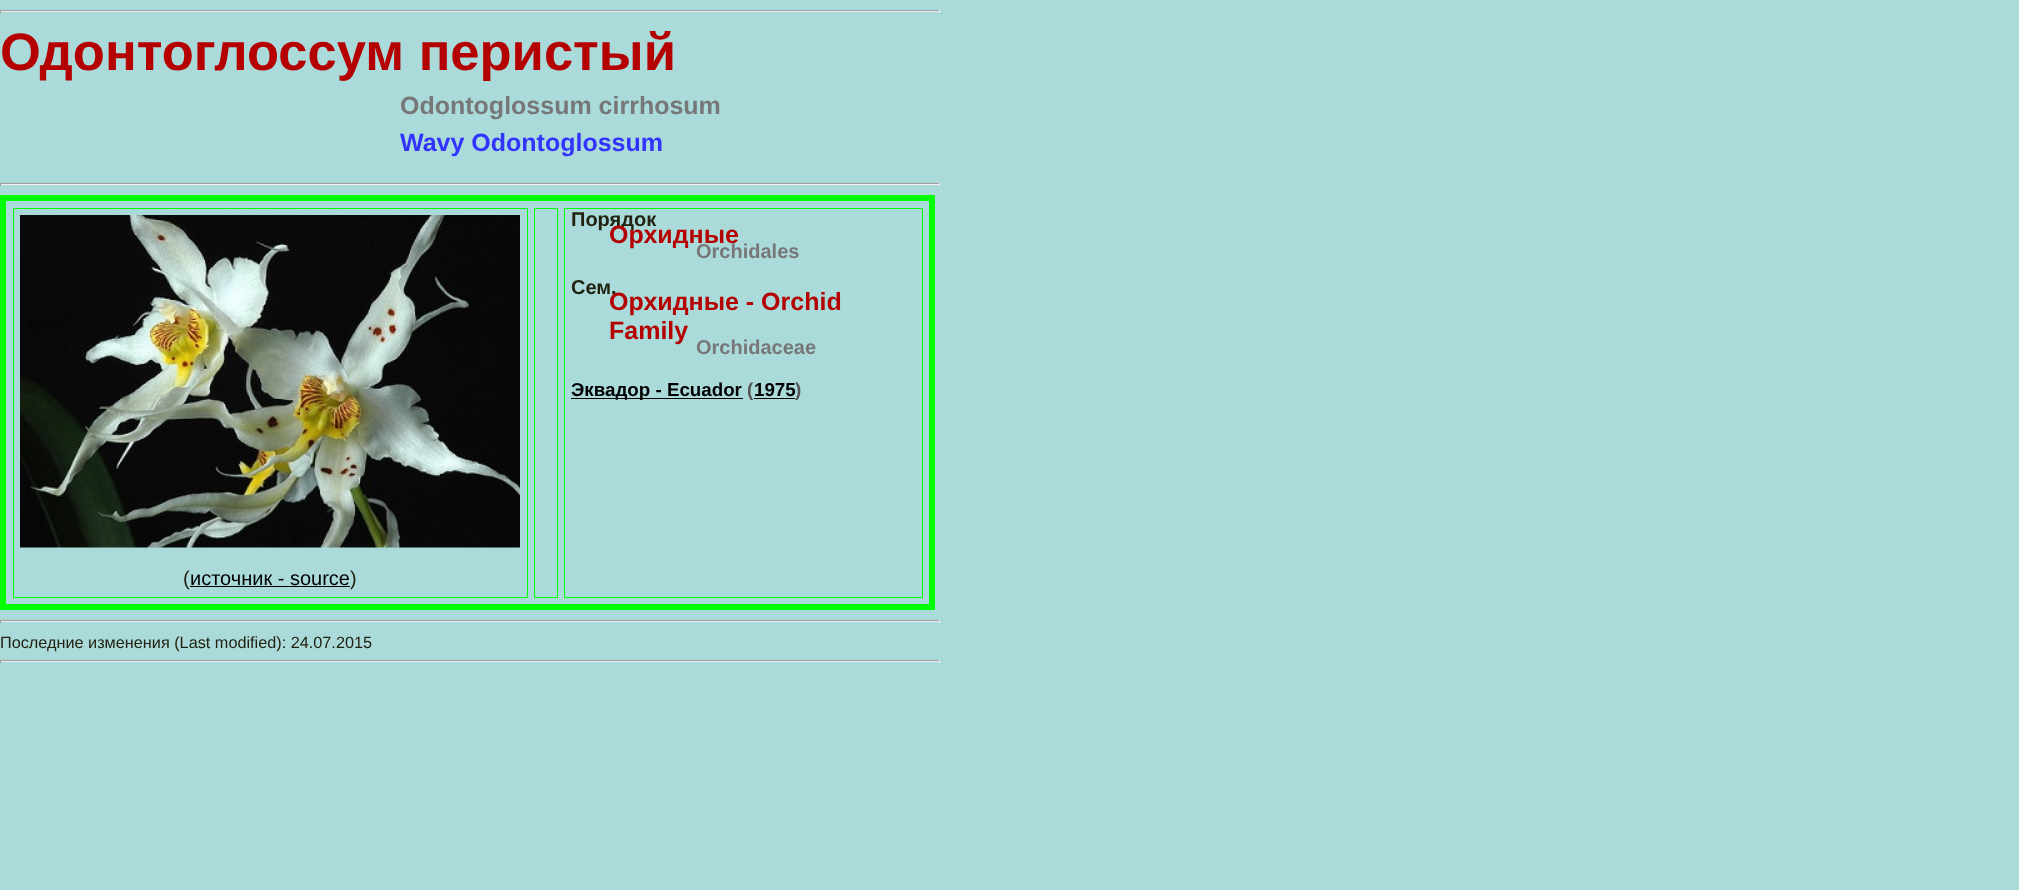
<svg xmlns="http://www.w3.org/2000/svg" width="2019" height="890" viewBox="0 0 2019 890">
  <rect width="100%" height="100%" fill="#aadada"/>
  <path d="M0 10h940v1H0z" fill="#9f9f9f"/>
  <path d="M939 10h1v3H939z" fill="#eee"/>
  <path d="M0 11h940v1H0z" fill="#eee"/>
  <path d="M0 10h1v3H0z" fill="#9f9f9f"/>
  <path d="M0 183h940v1H0z" fill="#9f9f9f"/>
  <path d="M939 183h1v3H939z" fill="#eee"/>
  <path d="M0 184h940v1H0z" fill="#eee"/>
  <path d="M0 183h1v3H0z" fill="#9f9f9f"/>
  <path d="M3 198h929v409H3z" fill="none" stroke="#0f0" stroke-width="6"/>
  <path d="M534.5 208.5h23v389H534.5z" fill="none" stroke="#0f0"/>
  <path d="M564.5 208.5h358v389H564.5z" fill="none" stroke="#0f0"/>
  <path d="M571 398h172v1H571z" fill="#000"/>
  <path d="M754 398h41v1H754z" fill="#000"/>
  <path d="M13.5 208.5h514v389H13.5z" fill="none" stroke="#0f0"/>
  <image x="20" y="215" width="500" height="333" href="img/1.png"/>
  <path d="M190 586h160v1H190z" fill="#000"/>
  <path d="M0 620h940v1H0z" fill="#9f9f9f"/>
  <path d="M939 620h1v3H939z" fill="#eee"/>
  <path d="M0 621h940v1H0z" fill="#eee"/>
  <path d="M0 620h1v3H0z" fill="#9f9f9f"/>
  <path d="M0 660h940v1H0z" fill="#9f9f9f"/>
  <path d="M939 660h1v3H939z" fill="#eee"/>
  <path d="M0 661h940v1H0z" fill="#eee"/>
  <path d="M0 660h1v3H0z" fill="#9f9f9f"/>
  <text x="0" y="70" font-family="Liberation Sans" font-size="52.5" font-weight="bold" fill="#b40000">Одонтоглоссум перистый</text>
  <text x="400" y="114" font-family="Liberation Sans" font-size="25" font-weight="bold" fill="#777">Odontoglossum cirrhosum</text>
  <text x="400" y="151" font-family="Liberation Sans" font-size="25" font-weight="bold" fill="#33f">Wavy Odontoglossum</text>
  <text x="571" y="226" font-family="Liberation Sans" font-size="20" font-weight="bold" fill="#221">Порядок</text>
  <text x="609" y="243" font-family="Liberation Sans" font-size="25" font-weight="bold" fill="#b40000">Орхидные</text>
  <text x="696" y="258" font-family="Liberation Sans" font-size="20" font-weight="bold" fill="#777">Orchidales</text>
  <text x="571" y="294" font-family="Liberation Sans" font-size="20" font-weight="bold" fill="#221">Сем.</text>
  <g font-family="Liberation Sans" font-size="25" font-weight="bold" fill="#b40000">
    <text x="609" y="310">Орхидные - Orchid</text>
    <text x="609" y="339">Family</text>
  </g>
  <text x="696" y="354" font-family="Liberation Sans" font-size="20" font-weight="bold" fill="#777">Orchidaceae</text>
  <text x="571" y="396" font-family="Liberation Sans" font-size="18.75" font-weight="bold" fill="#000">Эквадор - Ecuador</text>
  <text x="747" y="396" font-family="Liberation Sans" font-size="18.75" font-weight="bold" fill="#555">(</text>
  <text x="754" y="396" font-family="Liberation Sans" font-size="18.75" font-weight="bold" fill="#000">1975</text>
  <text x="795" y="396" font-family="Liberation Sans" font-size="18.75" font-weight="bold" fill="#555">)</text>
  <text x="183" y="585" font-family="Liberation Sans" font-size="20" fill="#221">(</text>
  <text x="190" y="585" font-family="Liberation Sans" font-size="20" fill="#000">источник - source</text>
  <text x="350" y="585" font-family="Liberation Sans" font-size="20" fill="#221">)</text>
  <text x="0" y="648" font-family="Liberation Sans" font-size="16.25" fill="#221">Последние изменения (Last modified): 24.07.2015</text>
</svg>
